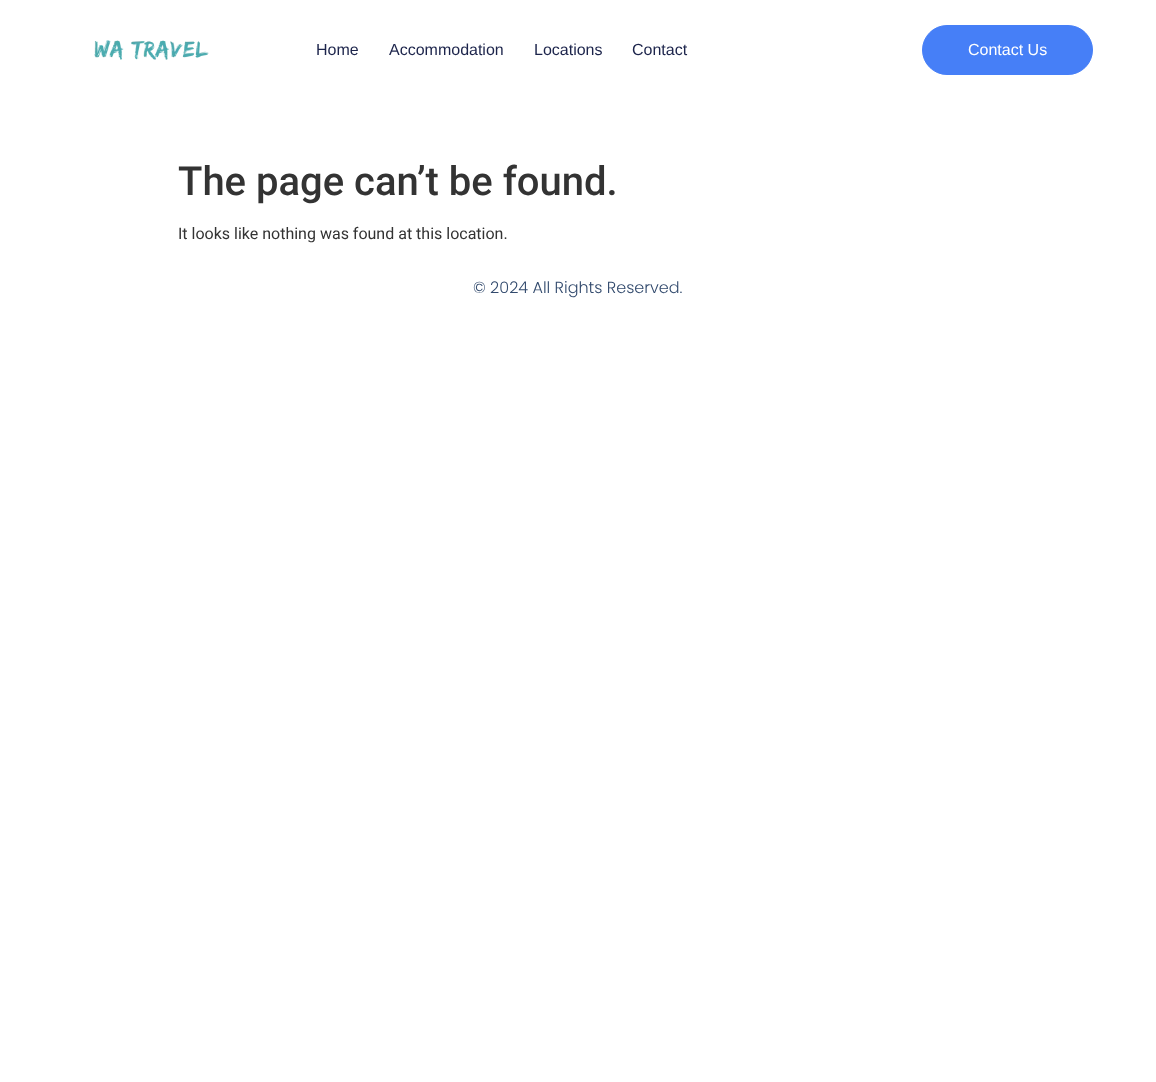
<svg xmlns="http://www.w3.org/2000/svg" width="1156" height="1082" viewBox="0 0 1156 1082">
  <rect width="100%" height="100%" fill="#fff"/>
  <image x="94" y="40" width="115" height="20" href="img/1.png"/>
  <rect x="922.5" y="25.5" width="170" height="49" rx="24.5" fill="#467ff7" stroke="#467ff7"/>
  <g font-family="Liberation Sans" font-size="16" fill="#1c244b">
    <text x="316" y="55">Home</text>
    <text x="389" y="55">Accommodation</text>
    <text x="534" y="55">Locations</text>
    <text x="632" y="55">Contact</text>
  </g>
  <text x="968" y="55" font-family="Liberation Sans" font-size="16" fill="#fff">Contact Us</text>
  <text x="178" y="195" font-family="Roboto" font-size="40" font-weight="500" fill="#333">The page can’t be found.</text>
  <text x="178" y="239" font-family="Roboto" font-size="16" fill="#333">It looks like nothing was found at this location.</text>
  <text x="473" y="293" font-family="Poppins" font-size="16" font-weight="300" fill="#324a6d">© 2024 All Rights Reserved.</text>
</svg>
